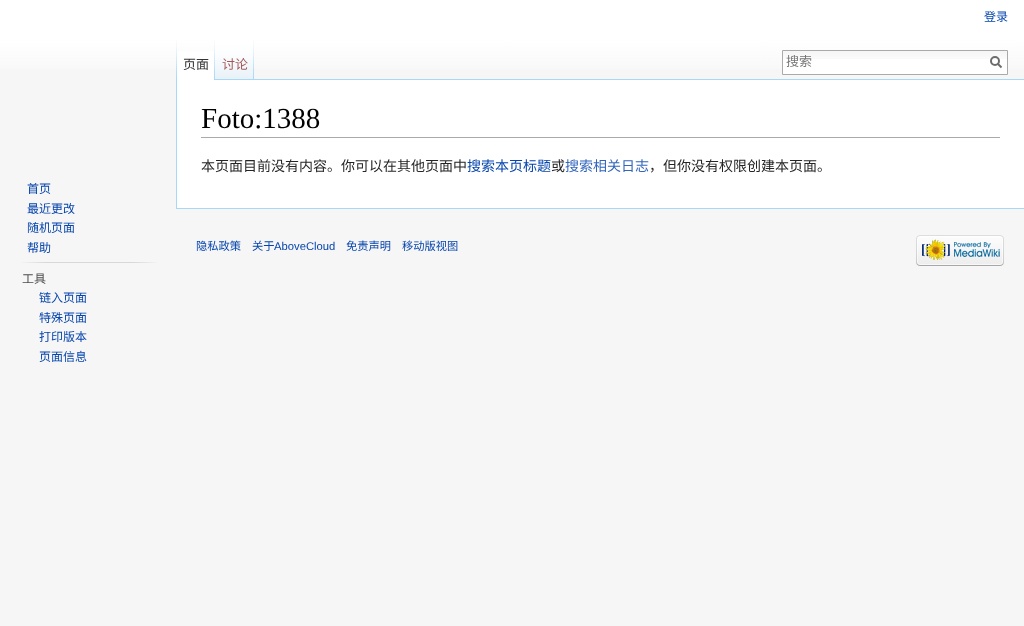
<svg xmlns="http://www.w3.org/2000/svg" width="1024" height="626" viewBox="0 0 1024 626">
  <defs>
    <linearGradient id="g1" gradientUnits="userSpaceOnUse" x1="512" y1="0" x2="512" y2="80"><stop offset="0.5" stop-color="#fff"/><stop offset="1" stop-color="#f6f6f6"/></linearGradient>
  </defs>
  <rect width="100%" height="100%" fill="#f6f6f6"/>
  <path d="M0 0h1024v69H0z" fill="url(#g1)"/>
  <image x="176" y="40" width="1" height="39" href="img/1.png"/>
  <path d="M177 51h37v29H177z" fill="#fff"/>
  <image x="214" y="40" width="1" height="40" href="img/2.png"/>
  <image x="215" y="40" width="39" height="40" href="img/3.png"/>
  <image x="253" y="40" width="1" height="39" href="img/4.png"/>
  <path d="M783 59h224v15H783z" fill="#fff"/>
  <image x="783" y="51" width="224" height="8" href="img/5.png"/>
  <path d="M782.5 50.5h225v24H782.5z" fill="none" stroke="#aaa"/>
  <path d="M1001.5 67.5L997.5 63.5" fill="none" stroke="#6c6c6c" stroke-width="2"/>
  <circle cx="995" cy="61" r="4" fill="none" stroke="#6c6c6c" stroke-width="2"/>
  <image x="22" y="262" width="135" height="1" href="img/6.png"/>
  <path d="M177 80h847v128H177z" fill="#fff"/>
  <path d="M254 79h770v1H254z" fill="#a7d7f9"/>
  <path d="M176 208h848v1H176z" fill="#a7d7f9"/>
  <path d="M176 79h1v130H176z" fill="#a7d7f9"/>
  <path d="M201 137h799v1H201z" fill="#aaa"/>
  <image x="916" y="235" width="88" height="31" href="img/7.png"/>
  <text x="984" y="21" font-family="Noto Sans CJK SC" font-size="12" fill="#0645ad">登录</text>
  <text x="183" y="69" font-family="Noto Sans CJK SC" font-size="13" fill="#333">页面</text>
  <text x="222" y="69" font-family="Noto Sans CJK SC" font-size="13" fill="#a55858">讨论</text>
  <text x="786" y="66" font-family="Noto Sans CJK SC" font-size="13" fill="#757575">搜索</text>
  <g font-family="Noto Sans CJK SC" font-size="12" fill="#0645ad">
    <text x="27" y="193">首页</text>
    <text x="27" y="213">最近更改</text>
    <text x="27" y="232">随机页面</text>
    <text x="27" y="252">帮助</text>
  </g>
  <text x="22" y="283" font-family="Noto Sans CJK SC" font-size="12" fill="#4d4d4d">工具</text>
  <g font-family="Noto Sans CJK SC" font-size="12" fill="#0645ad">
    <text x="39" y="302">链入页面</text>
    <text x="39" y="322">特殊页面</text>
    <text x="39" y="341">打印版本</text>
    <text x="39" y="361">页面信息</text>
  </g>
  <text x="201" y="128" font-family="Liberation Serif" font-size="29" fill="#000">Foto:1388</text>
  <text x="201" y="171" font-family="Noto Sans CJK SC" font-size="14" fill="#252525">本页面目前没有内容。你可以在其他页面中</text>
  <text x="467" y="171" font-family="Noto Sans CJK SC" font-size="14" fill="#0645ad">搜索本页标题</text>
  <text x="551" y="171" font-family="Noto Sans CJK SC" font-size="14" fill="#252525">或</text>
  <text x="565" y="171" font-family="Noto Sans CJK SC" font-size="14" fill="#36b">搜索相关日志</text>
  <text x="649" y="171" font-family="Noto Sans CJK SC" font-size="14" fill="#252525">，但你没有权限创建本页面。</text>
  <g font-family="Noto Sans CJK SC" font-size="11.25" fill="#0645ad">
    <text x="196" y="250">隐私政策</text>
    <text x="252" y="250">关于</text>
  </g>
  <text x="274" y="250" font-family="Liberation Sans" font-size="11.25" fill="#0645ad">AboveCloud</text>
  <g font-family="Noto Sans CJK SC" font-size="11.25" fill="#0645ad">
    <text x="346" y="250">免责声明</text>
    <text x="402" y="250">移动版视图</text>
  </g>
</svg>
